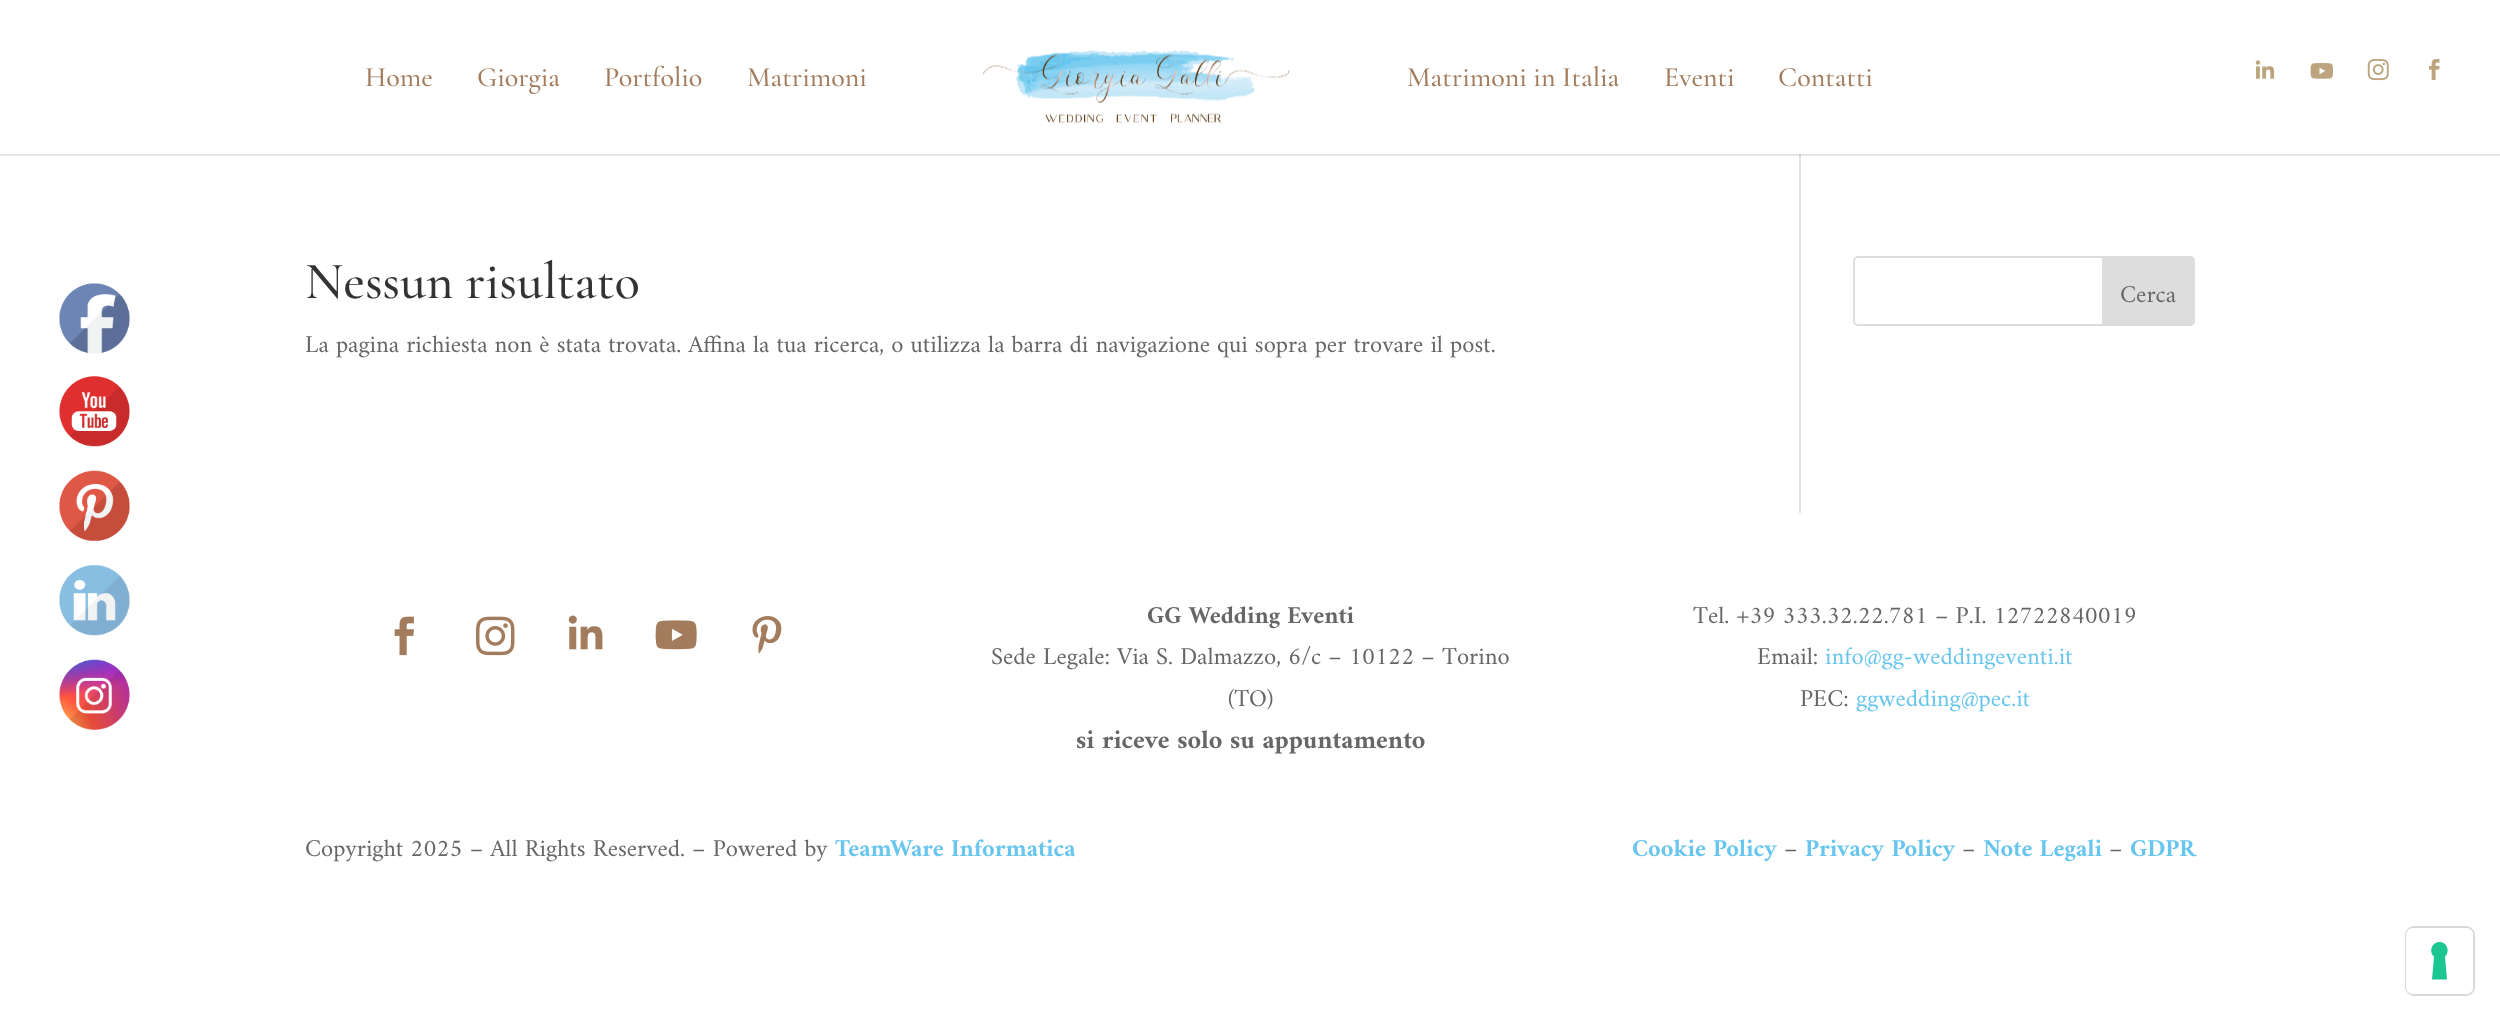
<svg xmlns="http://www.w3.org/2000/svg" width="2500" height="1022" viewBox="0 0 2500 1022">
  <rect width="100%" height="100%" fill="#fff"/>
  <image x="59" y="283" width="71" height="71" href="img/1.png"/>
  <image x="59" y="376" width="71" height="71" href="img/2.png"/>
  <image x="59" y="470" width="71" height="71" href="img/3.png"/>
  <image x="59" y="565" width="71" height="71" href="img/4.png"/>
  <image x="59" y="659" width="71" height="71" href="img/5.png"/>
  <path d="M1799 154h2v359H1799z" fill="#e2e2e2"/>
  <path d="M0 154V156H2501V2V154Z" fill="#0000001a"/>
  <image x="983" y="50" width="307" height="73" href="img/6.png"/>
  <image x="2255" y="60" width="20" height="19" href="img/7.png"/>
  <image x="2310" y="63" width="23" height="16" href="img/8.png"/>
  <image x="2367" y="59" width="22" height="22" href="img/9.png"/>
  <image x="2429" y="59" width="11" height="22" href="img/10.png"/>
  <rect x="1854" y="257" width="340" height="68" rx="4" fill="none" stroke="#ddd" stroke-width="2"/>
  <path d="M2103 257H2190C2192 257 2194 259 2194 261V321C2194 323 2192 325 2190 325H2103Z" fill="#ddd" stroke="#ddd" stroke-width="2"/>
  <image x="394" y="616" width="20" height="40" href="img/11.png"/>
  <image x="476" y="616" width="39" height="40" href="img/12.png"/>
  <image x="568" y="615" width="35" height="35" href="img/13.png"/>
  <image x="655" y="620" width="42" height="30" href="img/14.png"/>
  <image x="752" y="616" width="30" height="38" href="img/15.png"/>
  <rect x="2406" y="927" width="68" height="68" rx="8" fill="none" stroke="#d9d9d9" stroke-width="2"/>
  <rect x="2406" y="928" width="67" height="66" rx="7" fill="#fff"/>
  <path d="M2439.5 942C2447 942 2450.5 951.5 2445 956.5L2447 979.5H2432L2434 956.5C2428.5 951.5 2432 942 2439.5 942Z" fill="#1cc691" fill-rule="evenodd"/>
  <g font-family="Cormorant Garamond" font-size="28" font-weight="300" fill="#a27c5c">
    <text x="365" y="86">Home</text>
    <text x="477" y="86">Giorgia</text>
    <text x="604" y="86">Portfolio</text>
    <text x="747" y="86">Matrimoni</text>
    <text x="1407" y="86">Matrimoni in Italia</text>
    <text x="1664" y="86">Eventi</text>
    <text x="1778" y="86">Contatti</text>
  </g>
  <text x="305" y="298" font-family="Cormorant Garamond" font-size="52.5" font-weight="300" fill="#333">Nessun risultato</text>
  <g font-family="Amiri" font-size="24.5" fill="#666">
    <text x="305" y="352">La pagina richiesta non è stata trovata. Affina la tua ricerca, o utilizza la barra di navigazione qui sopra per trovare il post.</text>
    <text x="2120" y="302">Cerca</text>
  </g>
  <text x="1147" y="623" font-family="Amiri" font-size="24.5" font-weight="bold" fill="#666">GG Wedding Eventi</text>
  <g font-family="Amiri" font-size="24.5" fill="#666">
    <text x="991" y="664">Sede Legale: Via S. Dalmazzo, 6/c – 10122 – Torino</text>
    <text x="1228" y="706">(TO)</text>
  </g>
  <text x="1076" y="748" font-family="Amiri" font-size="26.25" font-weight="bold" fill="#666">si riceve solo su appuntamento</text>
  <g font-family="Amiri" font-size="24.5" fill="#666">
    <text x="1693" y="623">Tel. +39 333.32.22.781 – P.I. 12722840019</text>
    <text x="1757" y="664">Email:</text>
  </g>
  <text x="1825" y="664" font-family="Amiri" font-size="24.5" fill="#68c6ee">info@gg-weddingeventi.it</text>
  <text x="1800" y="706" font-family="Amiri" font-size="24.5" fill="#666">PEC:</text>
  <text x="1856" y="706" font-family="Amiri" font-size="24.5" fill="#68c6ee">ggwedding@pec.it</text>
  <text x="305" y="856" font-family="Amiri" font-size="24.5" fill="#666">Copyright 2025 – All Rights Reserved. – Powered by</text>
  <g font-family="Amiri" font-size="24.5" font-weight="bold" fill="#68c6ee">
    <text x="835" y="856">TeamWare Informatica</text>
    <text x="1632" y="856">Cookie Policy</text>
  </g>
  <text x="1784" y="856" font-family="Amiri" font-size="24.5" fill="#666">–</text>
  <text x="1805" y="856" font-family="Amiri" font-size="24.5" font-weight="bold" fill="#68c6ee">Privacy Policy</text>
  <text x="1962" y="856" font-family="Amiri" font-size="24.5" fill="#666">–</text>
  <text x="1983" y="856" font-family="Amiri" font-size="24.5" font-weight="bold" fill="#68c6ee">Note Legali</text>
  <text x="2109" y="856" font-family="Amiri" font-size="24.5" fill="#666">–</text>
  <text x="2130" y="856" font-family="Amiri" font-size="24.5" font-weight="bold" fill="#68c6ee">GDPR</text>
</svg>
